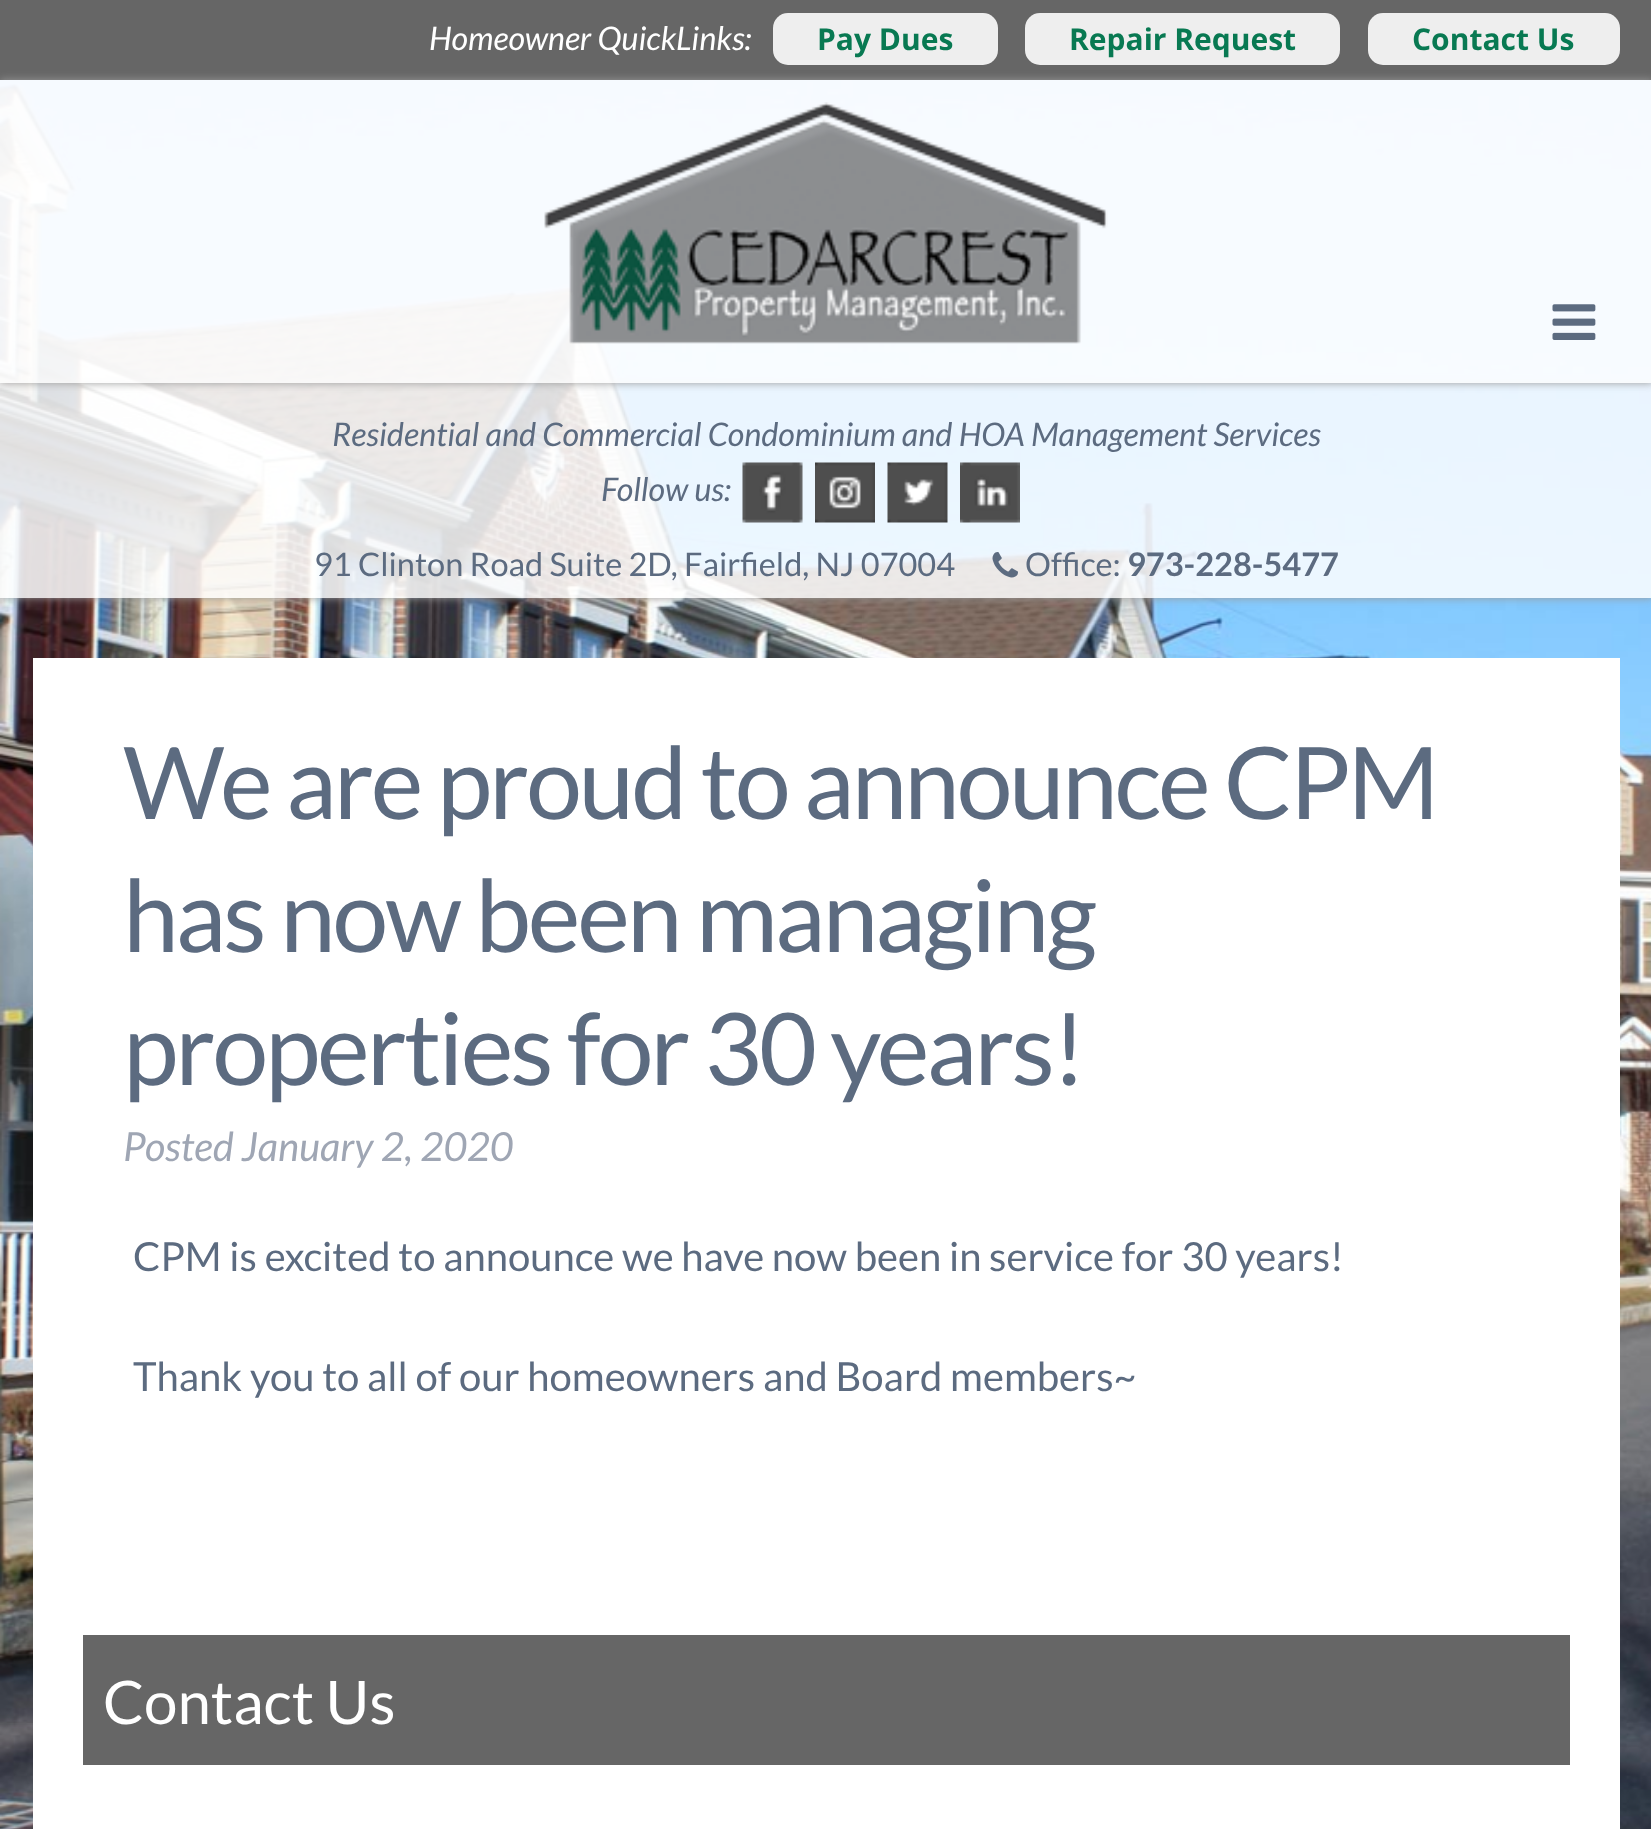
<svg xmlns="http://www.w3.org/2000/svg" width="1651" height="1829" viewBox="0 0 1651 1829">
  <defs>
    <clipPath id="clip1"><path d="M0 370H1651V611H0ZM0 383H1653V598H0Z" clip-rule="evenodd"/></clipPath>
    <clipPath id="clip2"><path d="M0 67H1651V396H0ZM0 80H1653V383H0Z" clip-rule="evenodd"/></clipPath>
  </defs>
  <rect width="100%" height="100%" fill="#fff"/>
  <image x="0" y="80" width="1651" height="1749" href="img/1.png"/>
  <path d="M0 0h1651v80H0z" fill="#666"/>
  <rect x="773" y="13" width="225" height="52" rx="15" fill="#eee"/>
  <rect x="1025" y="13" width="315" height="52" rx="15" fill="#eee"/>
  <rect x="1368" y="13" width="252" height="52" rx="15" fill="#eee"/>
  <g clip-path="url(#clip1)">
    <path d="M0 383h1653v215H0z" fill="#999" filter="blur(4px)"/>
  </g>
  <path d="M0 383h1651v215H0z" fill="#ffffffd9"/>
  <g clip-path="url(#clip2)">
    <path d="M0 80h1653v303H0z" fill="#999" filter="blur(4px)"/>
  </g>
  <path d="M0 80h1651v303H0z" fill="#fffffff2"/>
  <image x="544" y="102" width="564" height="242" href="img/2.png"/>
  <image x="1552" y="304" width="44" height="36" href="img/3.png"/>
  <image x="742" y="462" width="61" height="61" href="img/4.png"/>
  <image x="815" y="462" width="60" height="61" href="img/5.png"/>
  <image x="887" y="462" width="61" height="61" href="img/6.png"/>
  <image x="960" y="462" width="60" height="61" href="img/7.png"/>
  <image x="992" y="552" width="26" height="26" href="img/8.png"/>
  <path d="M33 658h1587v1171H33z" fill="#fff"/>
  <path d="M83 1635h1487v130H83z" fill="#666"/>
  <text x="429" y="50" font-family="Lato" font-size="32.5" font-style="italic" fill="#fff">Homeowner QuickLinks:</text>
  <g font-family="Open Sans" font-size="30" font-weight="bold" fill="#087952">
    <text x="817" y="50">Pay Dues</text>
    <text x="1069" y="50">Repair Request</text>
    <text x="1412" y="50">Contact Us</text>
  </g>
  <g font-family="Lato" font-size="32.5" font-style="italic" fill="#5c6b80">
    <text x="332" y="446">Residential and Commercial Condominium and HOA Management Services</text>
    <text x="601" y="501">Follow us:</text>
  </g>
  <g font-family="Lato" font-size="32.5" fill="#5c6b80">
    <text x="314" y="576">91 Clinton Road Suite 2D, Fairfield, NJ 07004</text>
    <text x="1025" y="576">Office:</text>
  </g>
  <text x="1127" y="576" font-family="Lato" font-size="32.5" font-weight="bold" fill="#5c6b80">973-228-5477</text>
  <g font-family="Lato" font-size="100" letter-spacing="-3" fill="#5c6b80">
    <text x="123" y="819">We are proud to announce CPM</text>
    <text x="123" y="952">has now been managing</text>
    <text x="123" y="1085">properties for 30 years!</text>
  </g>
  <text x="123" y="1161" font-family="Lato" font-size="40" font-style="italic" fill="#9fa6b4">Posted January 2, 2020</text>
  <g font-family="Lato" font-size="40" fill="#5c6b80">
    <text x="133" y="1271">CPM is excited to announce we have now been in service for 30 years!</text>
    <text x="133" y="1391">Thank you to all of our homeowners and Board members~</text>
  </g>
  <text x="103" y="1724" font-family="Lato" font-size="60" fill="#fff">Contact Us</text>
</svg>
